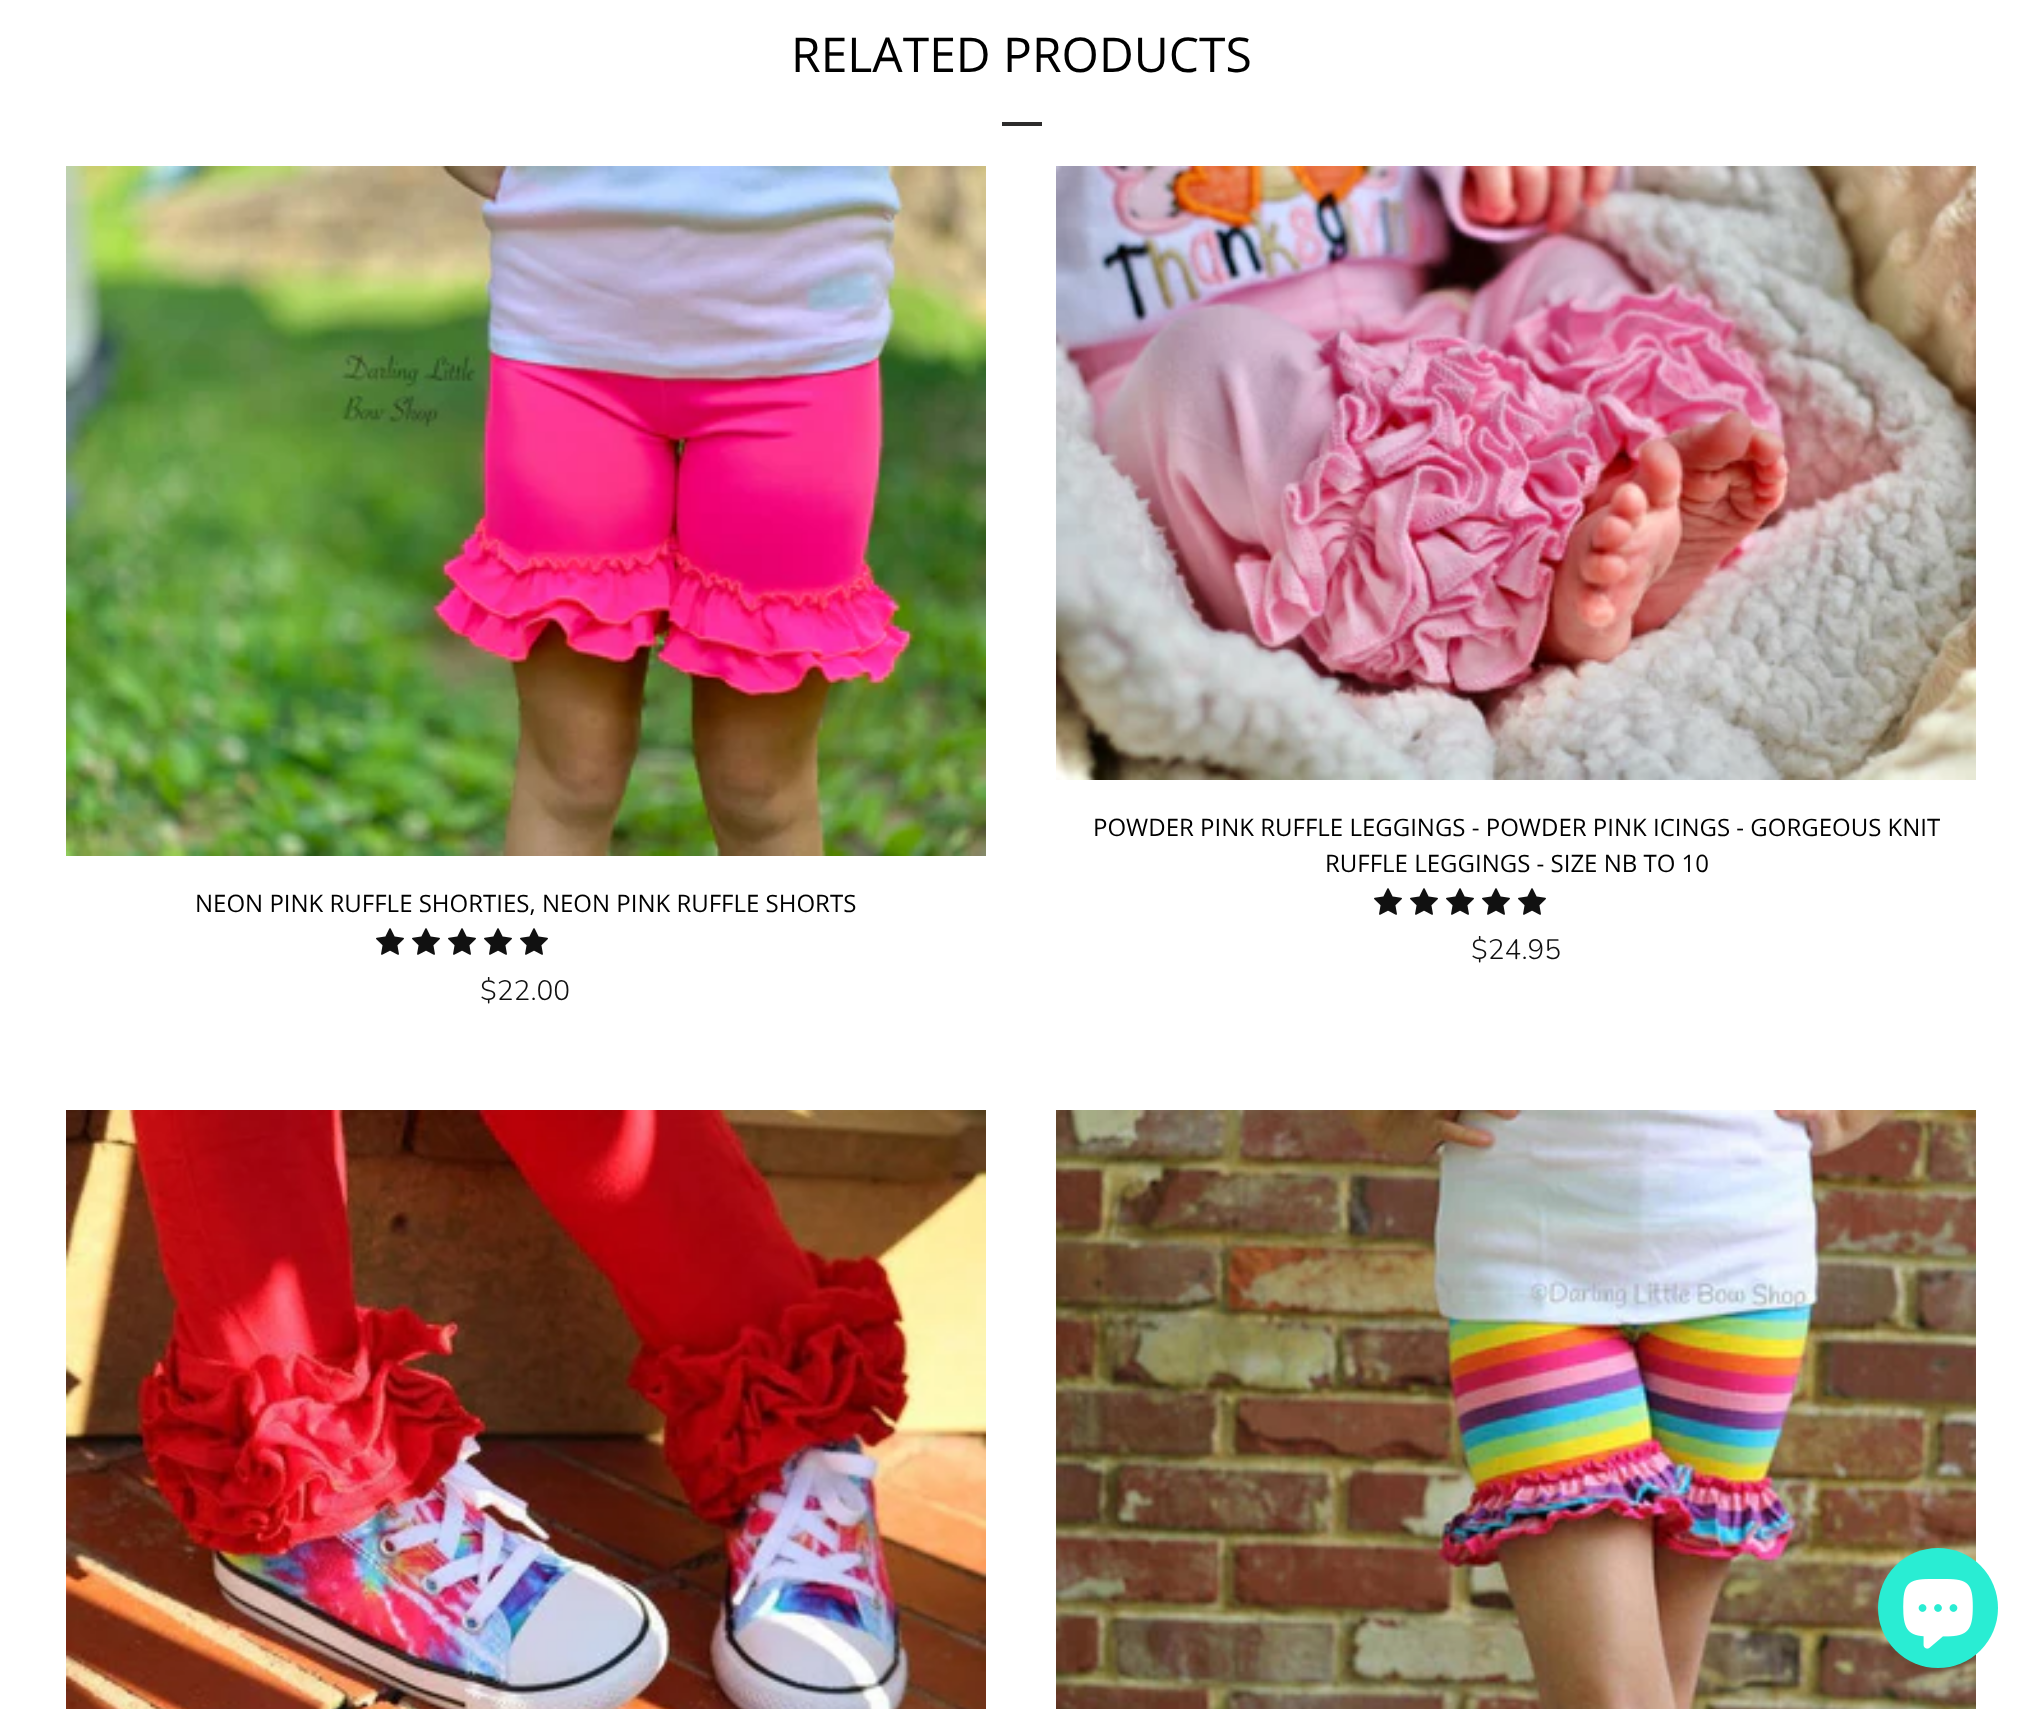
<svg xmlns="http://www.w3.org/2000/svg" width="2042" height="1709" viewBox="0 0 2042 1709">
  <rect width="100%" height="100%" fill="#fff"/>
  <path d="M1002 122h40v4H1002z" fill="#2d2c2c"/>
  <image x="66" y="166" width="920" height="690" href="img/1.png"/>
  <image x="376" y="928" width="28" height="27" href="img/2.png"/>
  <image x="412" y="928" width="28" height="27" href="img/2.png"/>
  <image x="448" y="928" width="28" height="27" href="img/2.png"/>
  <image x="484" y="928" width="28" height="27" href="img/2.png"/>
  <image x="520" y="928" width="28" height="27" href="img/2.png"/>
  <image x="1056" y="166" width="920" height="614" href="img/3.png"/>
  <image x="1374" y="888" width="28" height="27" href="img/2.png"/>
  <image x="1410" y="888" width="28" height="27" href="img/2.png"/>
  <image x="1446" y="888" width="28" height="27" href="img/2.png"/>
  <image x="1482" y="888" width="28" height="27" href="img/2.png"/>
  <image x="1518" y="888" width="28" height="27" href="img/2.png"/>
  <image x="66" y="1110" width="920" height="599" href="img/4.png"/>
  <image x="1056" y="1110" width="920" height="599" href="img/5.png"/>
  <circle cx="1938" cy="1608" r="60" fill="#29edd3"/>
  <image x="1903" y="1579" width="70" height="70" href="img/6.png"/>
  <text x="791" y="72" font-family="Open Sans" font-size="48" fill="#000">RELATED PRODUCTS</text>
  <text x="195" y="912" font-family="Open Sans" font-size="24" fill="#000">NEON PINK RUFFLE SHORTIES, NEON PINK RUFFLE SHORTS</text>
  <text x="480" y="1000" font-family="Nunito" font-size="28" font-weight="300" fill="#111">$22.00</text>
  <g font-family="Open Sans" font-size="24" fill="#000">
    <text x="1093" y="836">POWDER PINK RUFFLE LEGGINGS - POWDER PINK ICINGS - GORGEOUS KNIT</text>
    <text x="1325" y="872">RUFFLE LEGGINGS - SIZE NB TO 10</text>
  </g>
  <text x="1471" y="959" font-family="Nunito" font-size="28" font-weight="300" fill="#111">$24.95</text>
</svg>
